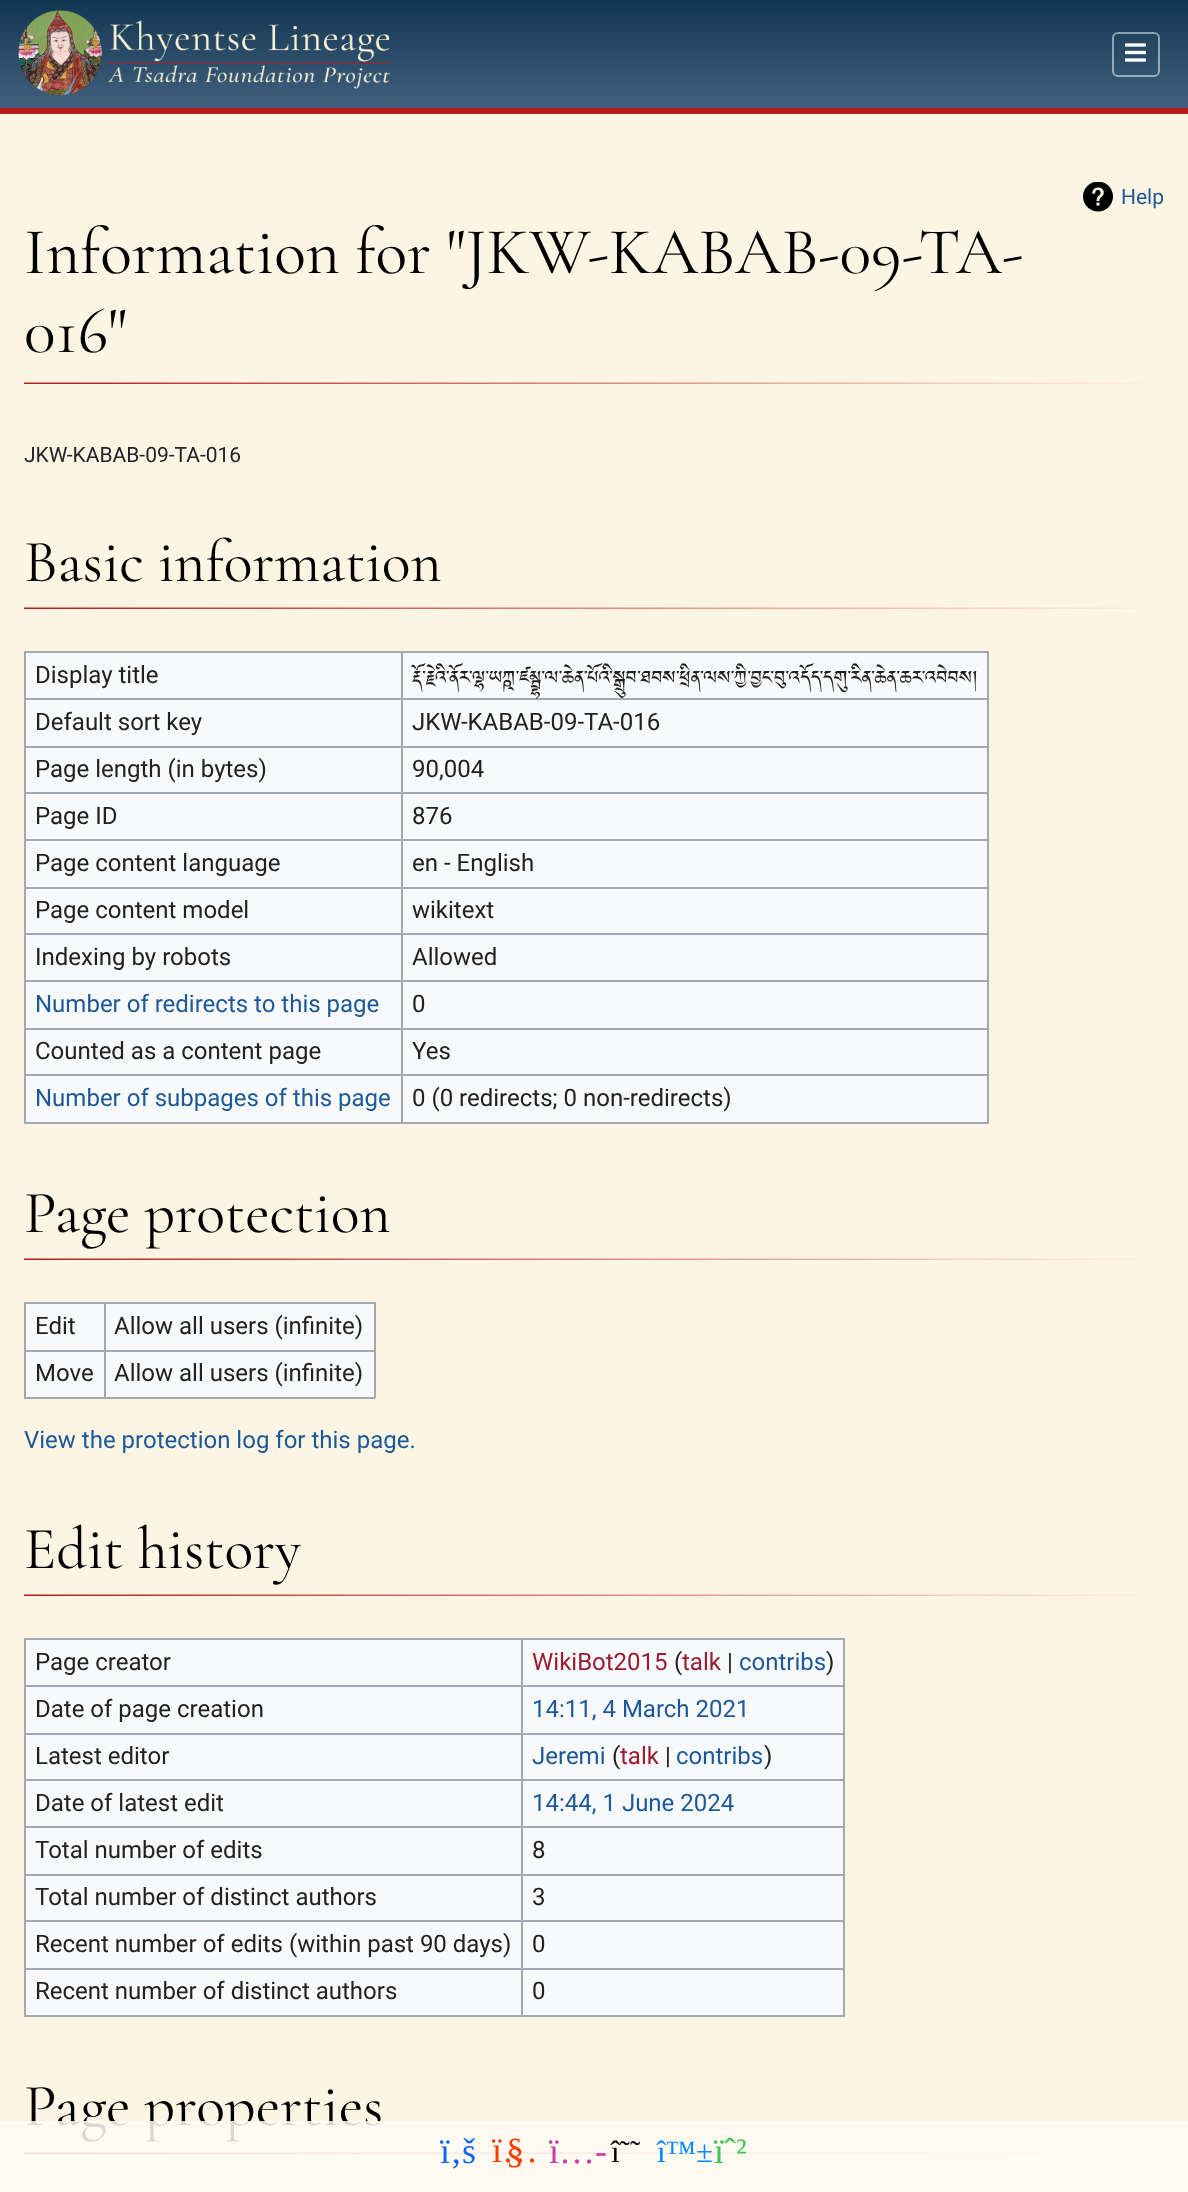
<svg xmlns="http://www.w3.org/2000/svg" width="1188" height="2192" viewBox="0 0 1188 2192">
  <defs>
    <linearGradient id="g1" gradientUnits="userSpaceOnUse" x1="594" y1="0" x2="594" y2="108"><stop offset="0" stop-color="#113651"/><stop offset="1" stop-color="#41607d"/></linearGradient>
  </defs>
  <rect width="100%" height="100%" fill="#fdf5e4"/>
  <path d="M0 0h1188v108H0z" fill="url(#g1)"/>
  <path d="M0 108h1188v6H0z" fill="#ba1b1d"/>
  <image x="18" y="10" width="373" height="86" href="img/1.png"/>
  <rect x="1113" y="33" width="46" height="43" rx="5" fill="none" stroke="#ffffff80" stroke-width="2"/>
  <image x="1125" y="43" width="21" height="19" href="img/2.png"/>
  <image x="1083" y="182" width="30" height="30" href="img/3.png"/>
  <image x="24" y="382" width="1117" height="2" href="img/4.png"/>
  <image x="24" y="607" width="1117" height="2" href="img/5.png"/>
  <path d="M26 653h961v469H26z" fill="#f8f9fa"/>
  <path d="M24 651h965v2H24z" fill="#a2a9b1"/>
  <path d="M987 651h2v473H987z" fill="#a2a9b1"/>
  <path d="M24 1122h965v2H24z" fill="#a2a9b1"/>
  <path d="M24 651h2v473H24z" fill="#a2a9b1"/>
  <path d="M401 698h588v2H401z" fill="#a2a9b1"/>
  <path d="M401 746h588v2H401z" fill="#a2a9b1"/>
  <path d="M401 792h588v2H401z" fill="#a2a9b1"/>
  <path d="M401 839h588v2H401z" fill="#a2a9b1"/>
  <path d="M401 887h588v2H401z" fill="#a2a9b1"/>
  <path d="M401 933h588v2H401z" fill="#a2a9b1"/>
  <path d="M401 980h588v2H401z" fill="#a2a9b1"/>
  <path d="M401 1028h588v2H401z" fill="#a2a9b1"/>
  <path d="M401 1074h588v2H401z" fill="#a2a9b1"/>
  <path d="M401 1074h2v50H401z" fill="#a2a9b1"/>
  <path d="M24 1074h378v2H24z" fill="#a2a9b1"/>
  <path d="M401 1028h2v48H401z" fill="#a2a9b1"/>
  <path d="M24 1028h378v2H24z" fill="#a2a9b1"/>
  <path d="M401 980h2v49H401z" fill="#a2a9b1"/>
  <path d="M24 980h378v2H24z" fill="#a2a9b1"/>
  <path d="M401 933h2v48H401z" fill="#a2a9b1"/>
  <path d="M24 933h378v2H24z" fill="#a2a9b1"/>
  <path d="M401 887h2v48H401z" fill="#a2a9b1"/>
  <path d="M24 887h378v2H24z" fill="#a2a9b1"/>
  <path d="M401 839h2v49H401z" fill="#a2a9b1"/>
  <path d="M24 839h378v2H24z" fill="#a2a9b1"/>
  <path d="M401 792h2v48H401z" fill="#a2a9b1"/>
  <path d="M24 792h378v2H24z" fill="#a2a9b1"/>
  <path d="M401 746h2v48H401z" fill="#a2a9b1"/>
  <path d="M24 746h378v2H24z" fill="#a2a9b1"/>
  <path d="M401 698h2v49H401z" fill="#a2a9b1"/>
  <path d="M24 698h378v2H24z" fill="#a2a9b1"/>
  <path d="M401 651h2v48H401z" fill="#a2a9b1"/>
  <image x="24" y="1258" width="1117" height="2" href="img/6.png"/>
  <path d="M26 1304h348v93H26z" fill="#f8f9fa"/>
  <path d="M24 1302h351v2H24z" fill="#a2a9b1"/>
  <path d="M374 1302h2v96H374z" fill="#a2a9b1"/>
  <path d="M24 1397h351v2H24z" fill="#a2a9b1"/>
  <path d="M24 1302h2v96H24z" fill="#a2a9b1"/>
  <path d="M104 1350h271v2H104z" fill="#a2a9b1"/>
  <path d="M104 1350h2v48H104z" fill="#a2a9b1"/>
  <path d="M24 1350h81v2H24z" fill="#a2a9b1"/>
  <path d="M104 1302h2v50H104z" fill="#a2a9b1"/>
  <image x="24" y="1594" width="1117" height="2" href="img/7.png"/>
  <path d="M26 1640h817v375H26z" fill="#f8f9fa"/>
  <path d="M24 1638h821v2H24z" fill="#a2a9b1"/>
  <path d="M843 1638h2v378H843z" fill="#a2a9b1"/>
  <path d="M24 2015h821v2H24z" fill="#a2a9b1"/>
  <path d="M24 1638h2v378H24z" fill="#a2a9b1"/>
  <path d="M521 1685h324v2H521z" fill="#a2a9b1"/>
  <path d="M521 1733h324v2H521z" fill="#a2a9b1"/>
  <path d="M521 1779h324v2H521z" fill="#a2a9b1"/>
  <path d="M521 1826h324v2H521z" fill="#a2a9b1"/>
  <path d="M521 1874h324v2H521z" fill="#a2a9b1"/>
  <path d="M521 1920h324v2H521z" fill="#a2a9b1"/>
  <path d="M521 1968h324v2H521z" fill="#a2a9b1"/>
  <path d="M521 1968h2v48H521z" fill="#a2a9b1"/>
  <path d="M24 1968h498v2H24z" fill="#a2a9b1"/>
  <path d="M521 1920h2v50H521z" fill="#a2a9b1"/>
  <path d="M24 1920h498v2H24z" fill="#a2a9b1"/>
  <path d="M521 1874h2v48H521z" fill="#a2a9b1"/>
  <path d="M24 1874h498v2H24z" fill="#a2a9b1"/>
  <path d="M521 1826h2v49H521z" fill="#a2a9b1"/>
  <path d="M24 1826h498v2H24z" fill="#a2a9b1"/>
  <path d="M521 1779h2v48H521z" fill="#a2a9b1"/>
  <path d="M24 1779h498v2H24z" fill="#a2a9b1"/>
  <path d="M521 1733h2v48H521z" fill="#a2a9b1"/>
  <path d="M24 1733h498v2H24z" fill="#a2a9b1"/>
  <path d="M521 1685h2v49H521z" fill="#a2a9b1"/>
  <path d="M24 1685h498v2H24z" fill="#a2a9b1"/>
  <path d="M521 1638h2v48H521z" fill="#a2a9b1"/>
  <image x="24" y="2152" width="1117" height="2" href="img/4.png"/>
  <text x="1121" y="204" font-family="Roboto" font-size="21" fill="#1b599b">Help</text>
  <g font-family="Cormorant Garamond" font-size="66" fill="#000">
    <text x="24" y="273">Information for "JKW-KABAB-09-TA-</text>
    <text x="24" y="352">016"</text>
  </g>
  <text x="24" y="462" font-family="Roboto" font-size="21" fill="#212529">JKW-KABAB-09-TA-016</text>
  <text x="24" y="581" font-family="Cormorant Garamond" font-size="60" fill="#000">Basic information</text>
  <text x="35" y="683" font-family="Roboto" font-size="24" fill="#222">Display title</text>
  <text x="412" y="683" font-family="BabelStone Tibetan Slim" font-size="24" fill="#222">རྡོ་རྗེའི་ནོར་ལྷ་ཡཀྵ་ཛམྦྷ་ལ་ཆེན་པོའི་སྒྲུབ་ཐབས་ཕྲིན་ལས་ཀྱི་བྱང་བུ་འདོད་དགུ་རིན་ཆེན་ཆར་འབེབས།</text>
  <g font-family="Roboto" font-size="24" fill="#222">
    <text x="35" y="730">Default sort key</text>
    <text x="412" y="730">JKW-KABAB-09-TA-016</text>
    <text x="35" y="777">Page length (in bytes)</text>
    <text x="412" y="777">90,004</text>
    <text x="35" y="824">Page ID</text>
    <text x="412" y="824">876</text>
    <text x="35" y="871">Page content language</text>
    <text x="412" y="871">en - English</text>
    <text x="35" y="918">Page content model</text>
    <text x="412" y="918">wikitext</text>
    <text x="35" y="965">Indexing by robots</text>
    <text x="412" y="965">Allowed</text>
  </g>
  <text x="35" y="1012" font-family="Roboto" font-size="24" fill="#1b599b">Number of redirects to this page</text>
  <g font-family="Roboto" font-size="24" fill="#222">
    <text x="412" y="1012">0</text>
    <text x="35" y="1059">Counted as a content page</text>
    <text x="412" y="1059">Yes</text>
  </g>
  <text x="35" y="1106" font-family="Roboto" font-size="24" fill="#1b599b">Number of subpages of this page</text>
  <text x="412" y="1106" font-family="Roboto" font-size="24" fill="#222">0 (0 redirects; 0 non-redirects)</text>
  <text x="24" y="1232" font-family="Cormorant Garamond" font-size="60" fill="#000">Page protection</text>
  <g font-family="Roboto" font-size="24" fill="#222">
    <text x="35" y="1334">Edit</text>
    <text x="114" y="1334">Allow all users (infinite)</text>
    <text x="35" y="1381">Move</text>
    <text x="114" y="1381">Allow all users (infinite)</text>
  </g>
  <text x="24" y="1448" font-family="Roboto" font-size="24" fill="#1b599b">View the protection log for this page.</text>
  <text x="24" y="1568" font-family="Cormorant Garamond" font-size="60" fill="#000">Edit history</text>
  <text x="35" y="1670" font-family="Roboto" font-size="24" fill="#222">Page creator</text>
  <text x="532" y="1670" font-family="Roboto" font-size="24" fill="#9b1b2f">WikiBot2015</text>
  <text x="674" y="1670" font-family="Roboto" font-size="24" fill="#222">(</text>
  <text x="682" y="1670" font-family="Roboto" font-size="24" fill="#9b1b2f">talk</text>
  <text x="727" y="1670" font-family="Roboto" font-size="24" fill="#222">|</text>
  <text x="739" y="1670" font-family="Roboto" font-size="24" fill="#1b599b">contribs</text>
  <g font-family="Roboto" font-size="24" fill="#222">
    <text x="826" y="1670">)</text>
    <text x="35" y="1717">Date of page creation</text>
  </g>
  <text x="532" y="1717" font-family="Roboto" font-size="24" fill="#1b599b">14:11, 4 March 2021</text>
  <text x="35" y="1764" font-family="Roboto" font-size="24" fill="#222">Latest editor</text>
  <text x="532" y="1764" font-family="Roboto" font-size="24" fill="#1b599b">Jeremi</text>
  <text x="612" y="1764" font-family="Roboto" font-size="24" fill="#222">(</text>
  <text x="620" y="1764" font-family="Roboto" font-size="24" fill="#9b1b2f">talk</text>
  <text x="665" y="1764" font-family="Roboto" font-size="24" fill="#222">|</text>
  <text x="676" y="1764" font-family="Roboto" font-size="24" fill="#1b599b">contribs</text>
  <g font-family="Roboto" font-size="24" fill="#222">
    <text x="764" y="1764">)</text>
    <text x="35" y="1811">Date of latest edit</text>
  </g>
  <text x="532" y="1811" font-family="Roboto" font-size="24" fill="#1b599b">14:44, 1 June 2024</text>
  <g font-family="Roboto" font-size="24" fill="#222">
    <text x="35" y="1858">Total number of edits</text>
    <text x="532" y="1858">8</text>
    <text x="35" y="1905">Total number of distinct authors</text>
    <text x="532" y="1905">3</text>
    <text x="35" y="1952">Recent number of edits (within past 90 days)</text>
    <text x="532" y="1952">0</text>
    <text x="35" y="1999">Recent number of distinct authors</text>
    <text x="532" y="1999">0</text>
  </g>
  <text x="24" y="2125" font-family="Cormorant Garamond" font-size="60" fill="#000">Page properties</text>
  <path d="M0 2121h1188v71H0z" fill="#fffcf5db"/>
  <text x="440" y="2163" font-family="Liberation Serif" font-size="36" fill="#0a66ff">ï‚š</text>
  <g font-family="Liberation Serif" font-size="36" fill="#ff3a01">
    <text x="492" y="2162">ï…</text>
    <text x="506" y="2163">§</text>
  </g>
  <text x="549" y="2163" font-family="Liberation Serif" font-size="36" fill="#cd39a3">ï…-</text>
  <text x="611" y="2162" font-family="Liberation Serif" font-size="31" fill="#000">î˜˜</text>
  <text x="657" y="2162" font-family="Liberation Serif" font-size="31" fill="#08f">î™±</text>
  <text x="714" y="2163" font-family="Liberation Serif" font-size="36" fill="#3dc650">ïˆ²</text>
</svg>
